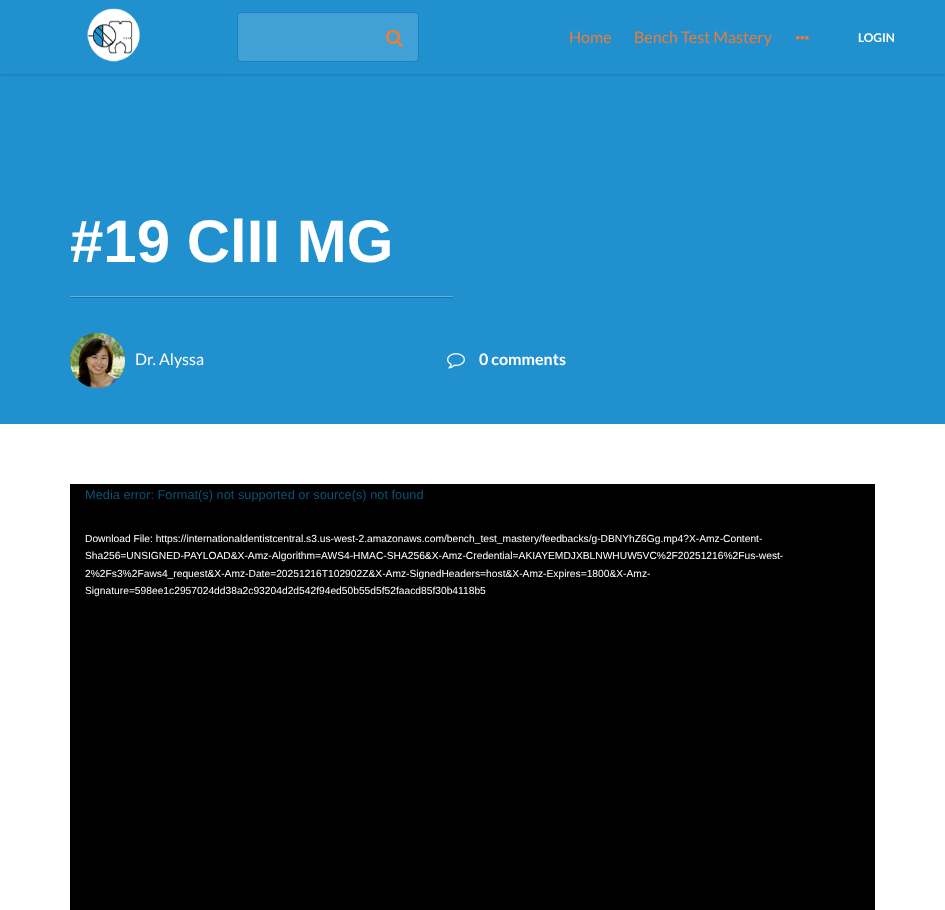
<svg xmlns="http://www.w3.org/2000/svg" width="945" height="910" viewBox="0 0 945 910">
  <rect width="100%" height="100%" fill="#fff"/>
  <path d="M0 74h945v350H0z" fill="#2090cf"/>
  <path d="M227 74h718v1H227z" fill="#1e89c5"/>
  <path d="M227 2h718v74H227z" fill="#0000000d" filter="blur(1px)"/>
  <path d="M0 74h227v1H0z" fill="#0000000d"/>
  <path d="M0 2h227v74H0z" fill="#0000000d" filter="blur(1px)"/>
  <path d="M0 0h945v74H0z" fill="#2090cf"/>
  <image x="87" y="8" width="53" height="54" href="img/1.png"/>
  <rect x="237.5" y="12.5" width="181" height="49" rx="3.5" fill="none" stroke="#1d82ba"/>
  <rect x="238" y="13" width="180" height="48" rx="4" fill="#41a1d6"/>
  <image x="386" y="29" width="17" height="18" href="img/2.png"/>
  <image x="796" y="36" width="13" height="4" href="img/3.png"/>
  <path d="M70 297h383v1H70z" fill="#1a73a6"/>
  <path d="M70 296h383v1H70z" fill="#63b1dd"/>
  <image x="70" y="333" width="55" height="55" href="img/4.png"/>
  <image x="447" y="353" width="18" height="16" href="img/5.png"/>
  <path d="M70 484h805v426H70z" fill="#000"/>
  <g font-family="Lato" font-size="16" fill="#ee7c35">
    <text x="569" y="43">Home</text>
    <text x="634" y="43">Bench Test Mastery</text>
  </g>
  <text x="858" y="42" font-family="Lato" font-size="12" font-weight="bold" fill="#fff">LOGIN</text>
  <text x="70" y="262" font-family="Arimo" font-size="60" font-weight="bold" fill="#fff">#19 ClII MG</text>
  <text x="135" y="365" font-family="Lato" font-size="16" fill="#fff">Dr. Alyssa</text>
  <text x="479" y="365" font-family="Lato" font-size="16" font-weight="bold" fill="#fff">0 comments</text>
  <text x="85" y="499" font-family="Liberation Sans" font-size="12.8" fill="#075477">Media error: Format(s) not supported or source(s) not found</text>
  <g font-family="Liberation Sans" font-size="10.25" fill="#fff">
    <text x="85" y="542">Download File: https://internationaldentistcentral.s3.us-west-2.amazonaws.com/bench_test_mastery/feedbacks/g-DBNYhZ6Gg.mp4?X-Amz-Content-</text>
    <text x="85" y="559">Sha256=UNSIGNED-PAYLOAD&amp;X-Amz-Algorithm=AWS4-HMAC-SHA256&amp;X-Amz-Credential=AKIAYEMDJXBLNWHUW5VC%2F20251216%2Fus-west-</text>
    <text x="85" y="577">2%2Fs3%2Faws4_request&amp;X-Amz-Date=20251216T102902Z&amp;X-Amz-SignedHeaders=host&amp;X-Amz-Expires=1800&amp;X-Amz-</text>
    <text x="85" y="594">Signature=598ee1c2957024dd38a2c93204d2d542f94ed50b55d5f52faacd85f30b4118b5</text>
  </g>
</svg>
